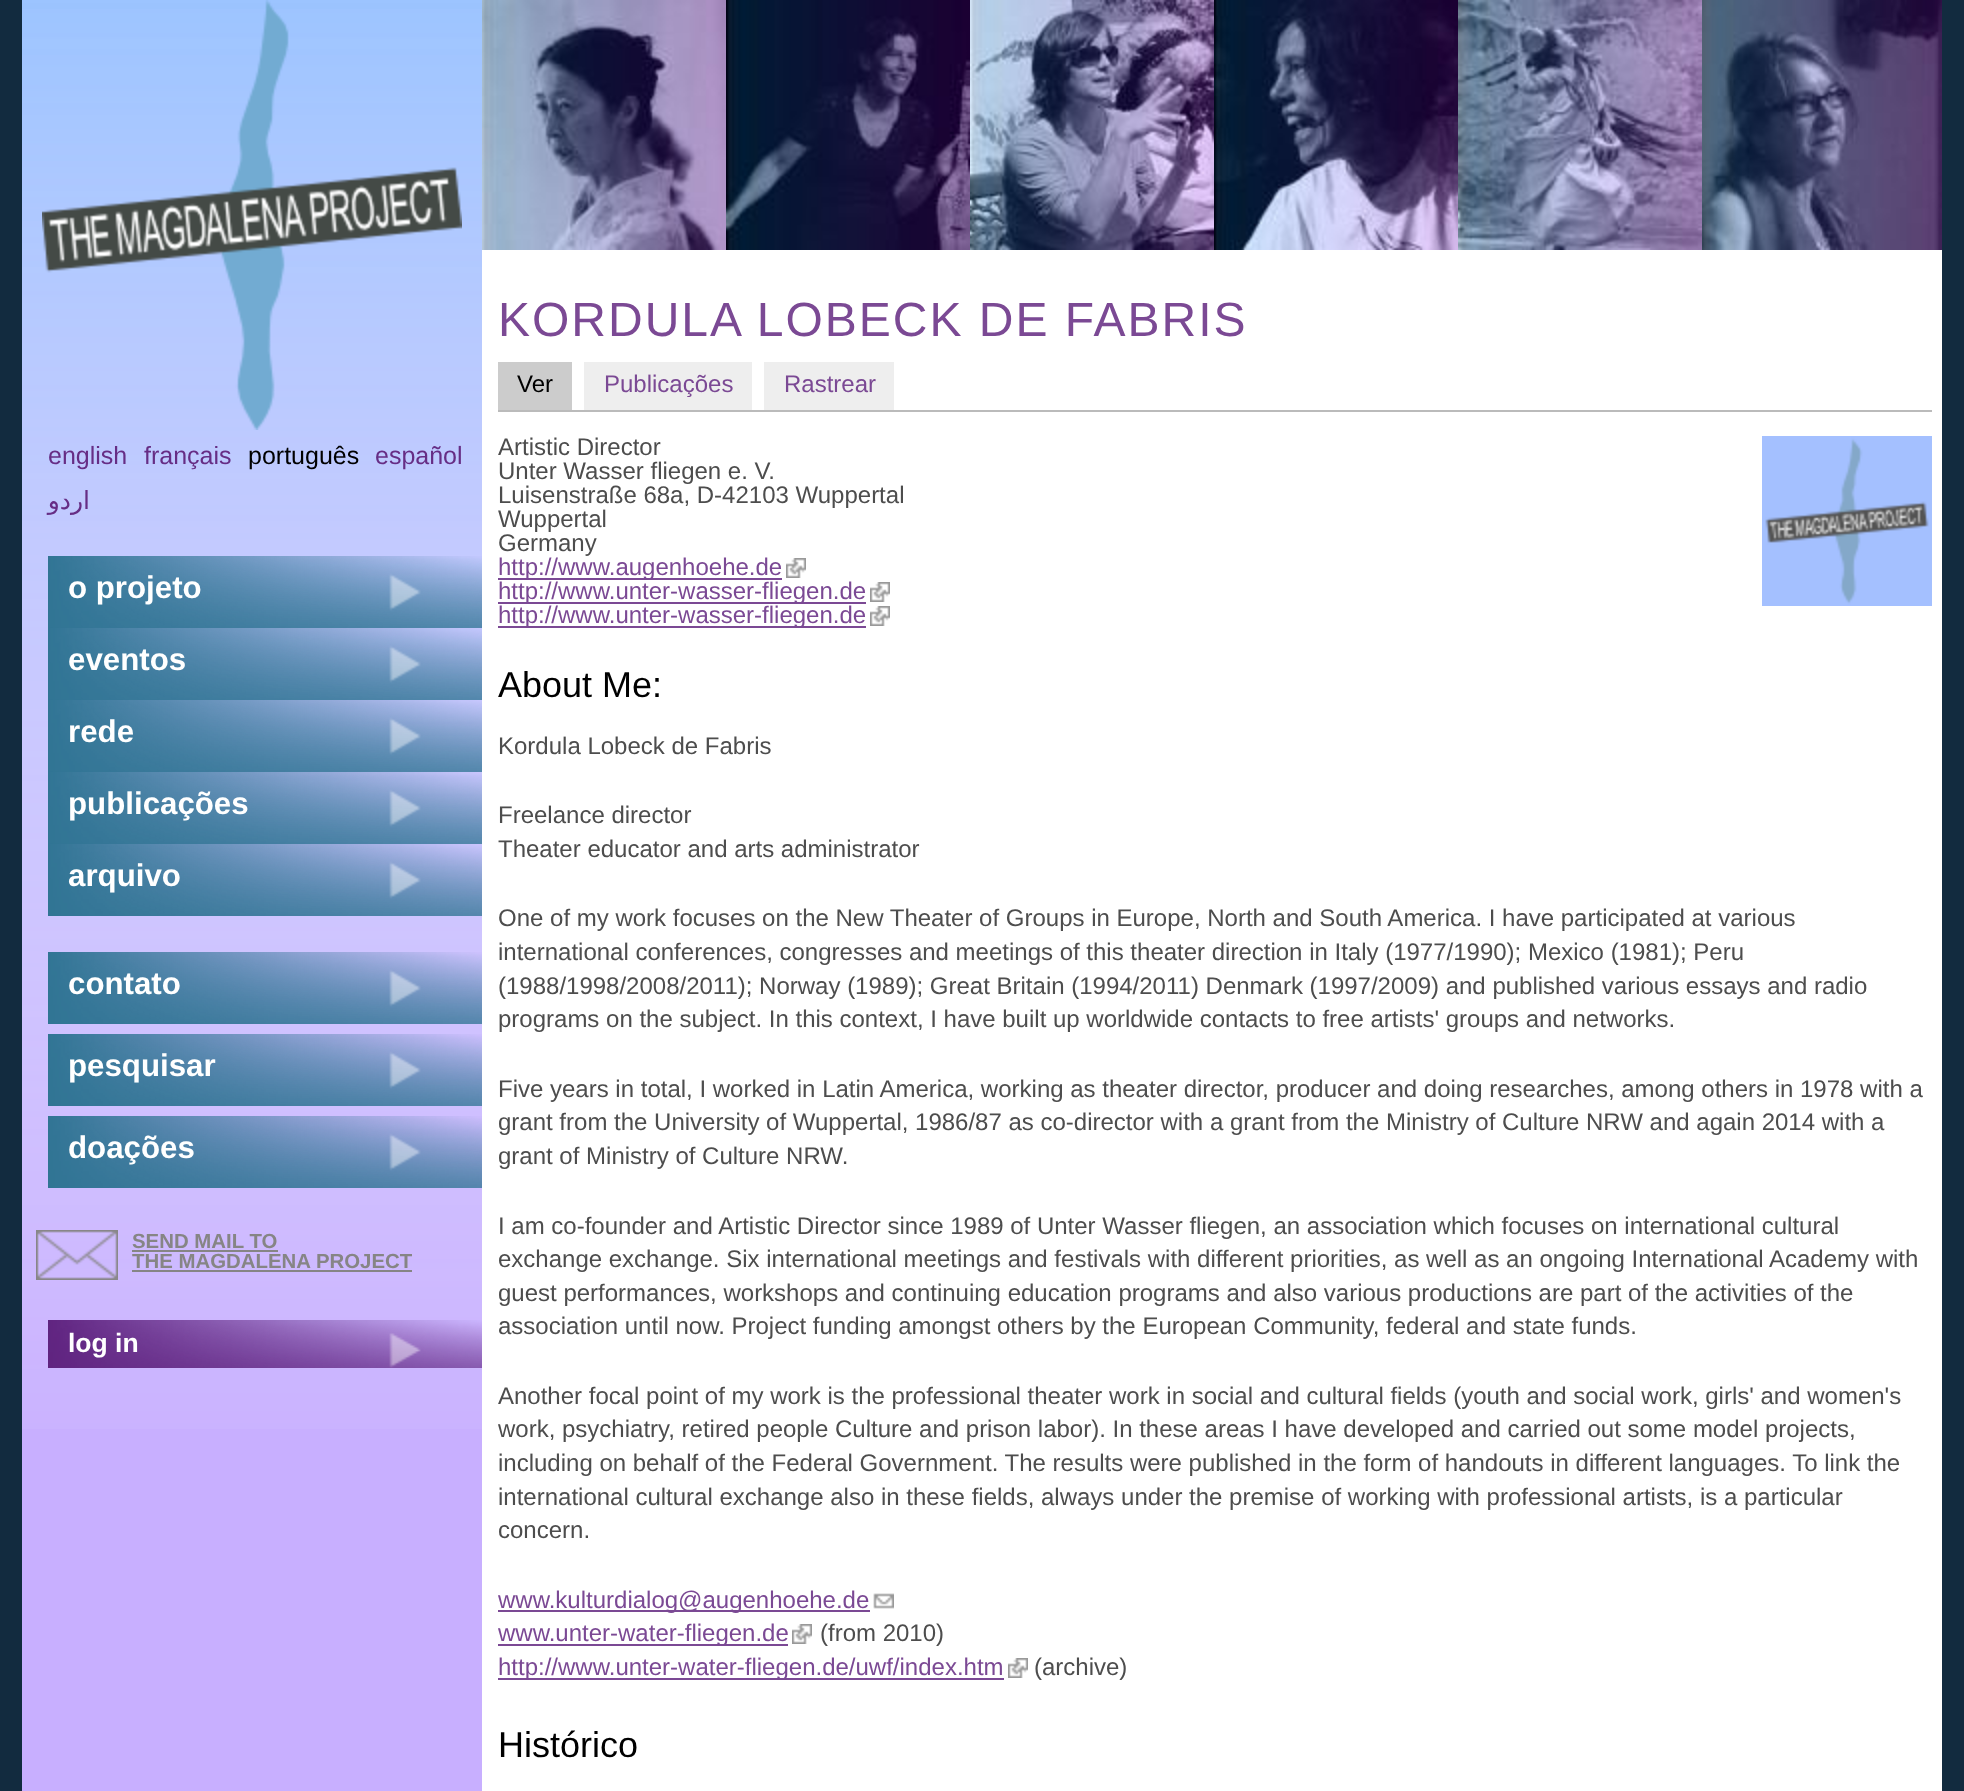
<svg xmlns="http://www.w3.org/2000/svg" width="1964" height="1791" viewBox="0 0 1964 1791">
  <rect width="100%" height="100%" fill="#122b3f"/>
  <path d="M482 250h1460v1541H482z" fill="#fff"/>
  <path d="M22 9h460v1782H22z" fill="#c8afff"/>
  <image x="22" y="0" width="460" height="1429" href="img/1.png"/>
  <image x="42" y="0" width="420" height="430" href="img/2.png"/>
  <image x="482" y="0" width="244" height="250" href="img/3.png"/>
  <image x="726" y="0" width="244" height="250" href="img/4.png"/>
  <image x="970" y="0" width="244" height="250" href="img/5.png"/>
  <image x="1214" y="0" width="244" height="250" href="img/6.png"/>
  <image x="1458" y="0" width="244" height="250" href="img/7.png"/>
  <image x="1702" y="0" width="240" height="250" href="img/8.png"/>
  <image x="48" y="556" width="434" height="72" href="img/9.png"/>
  <image x="48" y="628" width="434" height="72" href="img/10.png"/>
  <image x="48" y="700" width="434" height="72" href="img/11.png"/>
  <image x="48" y="772" width="434" height="72" href="img/12.png"/>
  <image x="48" y="844" width="434" height="72" href="img/13.png"/>
  <image x="48" y="952" width="434" height="72" href="img/14.png"/>
  <image x="48" y="1034" width="434" height="72" href="img/15.png"/>
  <image x="48" y="1116" width="434" height="72" href="img/16.png"/>
  <image x="36" y="1230" width="82" height="50" href="img/17.png"/>
  <path d="M132 1250h146v2H132z" fill="#868585"/>
  <path d="M132 1270h280v2H132z" fill="#868585"/>
  <image x="48" y="1320" width="434" height="48" href="img/18.png"/>
  <path d="M498 410h1434v2H498z" fill="#bbb"/>
  <path d="M498 362h74v48H498z" fill="#ccc"/>
  <path d="M584 362h168v48H584z" fill="#eee"/>
  <path d="M764 362h130v48H764z" fill="#eee"/>
  <image x="1762" y="436" width="170" height="170" href="img/19.png"/>
  <path d="M498 578h284v2H498z" fill="#7b4994"/>
  <image x="786" y="558" width="20" height="20" href="img/20.png"/>
  <path d="M498 602h368v2H498z" fill="#7b4994"/>
  <image x="870" y="582" width="20" height="20" href="img/20.png"/>
  <path d="M498 626h368v2H498z" fill="#7b4994"/>
  <image x="870" y="606" width="20" height="20" href="img/20.png"/>
  <path d="M498 1610h372v2H498z" fill="#7b4994"/>
  <image x="873" y="1593" width="21" height="16" href="img/21.png"/>
  <path d="M498 1644h290v2H498z" fill="#7b4994"/>
  <image x="792" y="1624" width="20" height="20" href="img/20.png"/>
  <path d="M498 1678h506v2H498z" fill="#7b4994"/>
  <image x="1008" y="1658" width="20" height="20" href="img/20.png"/>
  <g font-family="Liberation Sans" font-size="25" fill="#662d85">
    <text x="48" y="464">english</text>
    <text x="144" y="464">français</text>
  </g>
  <text x="248" y="464" font-family="Liberation Sans" font-size="25" fill="#000">português</text>
  <text x="375" y="464" font-family="Liberation Sans" font-size="25" fill="#662d85">español</text>
  <text x="90" y="509" font-family="DejaVu Sans" font-size="25" direction="rtl" fill="#662d85">اردو</text>
  <g font-family="Liberation Sans" font-size="31.25" font-weight="bold" fill="#fff">
    <text x="68" y="598">o projeto</text>
    <text x="68" y="670">eventos</text>
    <text x="68" y="742">rede</text>
    <text x="68" y="814">publicações</text>
    <text x="68" y="886">arquivo</text>
    <text x="68" y="994">contato</text>
    <text x="68" y="1076">pesquisar</text>
    <text x="68" y="1158">doações</text>
  </g>
  <g font-family="Liberation Sans" font-size="20.4" font-weight="bold" fill="#868585">
    <text x="132" y="1248">SEND MAIL TO</text>
    <text x="132" y="1268">THE MAGDALENA PROJECT</text>
  </g>
  <text x="68" y="1352" font-family="Liberation Sans" font-size="26.5" font-weight="bold" fill="#fff">log in</text>
  <text x="498" y="336" font-family="Liberation Sans" font-size="48" letter-spacing="2" fill="#7b4994">KORDULA LOBECK DE FABRIS</text>
  <text x="517" y="392" font-family="Liberation Sans" font-size="24" fill="#000">Ver</text>
  <g font-family="Liberation Sans" font-size="24" fill="#7b4994">
    <text x="604" y="392">Publicações</text>
    <text x="784" y="392">Rastrear</text>
  </g>
  <g font-family="Liberation Sans" font-size="24" fill="#4d4d4d">
    <text x="498" y="455">Artistic Director</text>
    <text x="498" y="479">Unter Wasser fliegen e. V.</text>
    <text x="498" y="503">Luisenstraße 68a, D-42103 Wuppertal</text>
    <text x="498" y="527">Wuppertal</text>
    <text x="498" y="551">Germany</text>
  </g>
  <g font-family="Liberation Sans" font-size="24" fill="#7b4994">
    <text x="498" y="575">http://www.augenhoehe.de</text>
    <text x="498" y="599">http://www.unter-wasser-fliegen.de</text>
    <text x="498" y="623">http://www.unter-wasser-fliegen.de</text>
  </g>
  <text x="498" y="697" font-family="Liberation Sans" font-size="36" fill="#000">About Me:</text>
  <g font-family="Liberation Sans" font-size="24" fill="#4d4d4d">
    <text x="498" y="754">Kordula Lobeck de Fabris</text>
    <text x="498" y="823">Freelance director</text>
    <text x="498" y="857">Theater educator and arts administrator</text>
    <text x="498" y="926">One of my work focuses on the New Theater of Groups in Europe, North and South America. I have participated at various</text>
    <text x="498" y="960">international conferences, congresses and meetings of this theater direction in Italy (1977/1990); Mexico (1981); Peru</text>
    <text x="498" y="994">(1988/1998/2008/2011); Norway (1989); Great Britain (1994/2011) Denmark (1997/2009) and published various essays and radio</text>
    <text x="498" y="1027">programs on the subject. In this context, I have built up worldwide contacts to free artists' groups and networks.</text>
    <text x="498" y="1097">Five years in total, I worked in Latin America, working as theater director, producer and doing researches, among others in 1978 with a</text>
    <text x="498" y="1130">grant from the University of Wuppertal, 1986/87 as co-director with a grant from the Ministry of Culture NRW and again 2014 with a</text>
    <text x="498" y="1164">grant of Ministry of Culture NRW.</text>
    <text x="498" y="1234">I am co-founder and Artistic Director since 1989 of Unter Wasser fliegen, an association which focuses on international cultural</text>
    <text x="498" y="1267">exchange exchange. Six international meetings and festivals with different priorities, as well as an ongoing International Academy with</text>
    <text x="498" y="1301">guest performances, workshops and continuing education programs and also various productions are part of the activities of the</text>
    <text x="498" y="1334">association until now. Project funding amongst others by the European Community, federal and state funds.</text>
    <text x="498" y="1404">Another focal point of my work is the professional theater work in social and cultural fields (youth and social work, girls' and women's</text>
    <text x="498" y="1437">work, psychiatry, retired people Culture and prison labor). In these areas I have developed and carried out some model projects,</text>
    <text x="498" y="1471">including on behalf of the Federal Government. The results were published in the form of handouts in different languages. To link the</text>
    <text x="498" y="1505">international cultural exchange also in these fields, always under the premise of working with professional artists, is a particular</text>
    <text x="498" y="1538">concern.</text>
  </g>
  <g font-family="Liberation Sans" font-size="24" fill="#7b4994">
    <text x="498" y="1608">www.kulturdialog@augenhoehe.de</text>
    <text x="498" y="1641">www.unter-water-fliegen.de</text>
  </g>
  <text x="820" y="1641" font-family="Liberation Sans" font-size="24" fill="#4d4d4d">(from 2010)</text>
  <text x="498" y="1675" font-family="Liberation Sans" font-size="24" fill="#7b4994">http://www.unter-water-fliegen.de/uwf/index.htm</text>
  <text x="1034" y="1675" font-family="Liberation Sans" font-size="24" fill="#4d4d4d">(archive)</text>
  <text x="498" y="1757" font-family="Liberation Sans" font-size="36" fill="#000">Histórico</text>
</svg>
